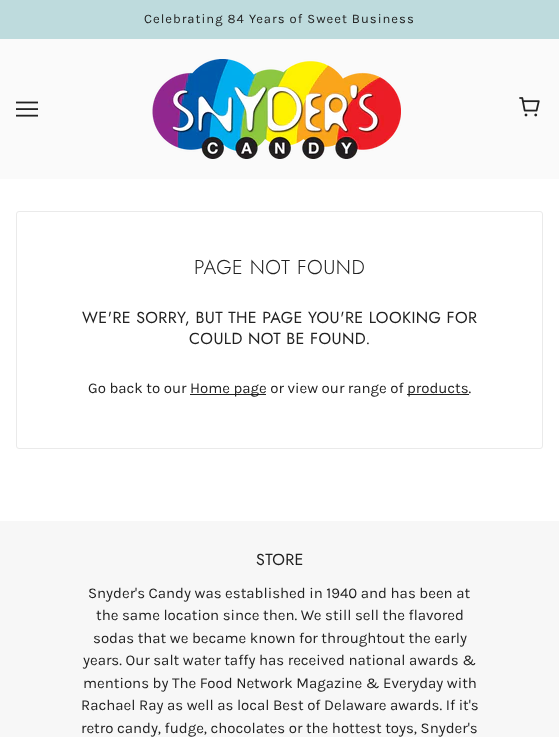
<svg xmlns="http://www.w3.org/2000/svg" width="559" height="737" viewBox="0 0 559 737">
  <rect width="100%" height="100%" fill="#fff"/>
  <path d="M0 0h559v39H0z" fill="#bedbdd"/>
  <path d="M0 39h559v140H0z" fill="#fafafa"/>
  <image x="16" y="101" width="22" height="16" href="img/1.png"/>
  <image x="152" y="59" width="249" height="100" href="img/2.png"/>
  <image x="519" y="97" width="21" height="20" href="img/3.png"/>
  <rect x="16.5" y="211.5" width="526" height="237" rx="2.5" fill="none" stroke="#eaeaea"/>
  <path d="M190 394h76v1H190z" fill="#212121"/>
  <path d="M407 394h62v1H407z" fill="#212121"/>
  <path d="M0 521h559v216H0z" fill="#f7f7f7"/>
  <text x="144" y="23" font-family="Karla" font-size="13" letter-spacing="1" fill="#212121">Celebrating 84 Years of Sweet Business</text>
  <text x="194" y="274" font-family="Jost" font-size="20" font-weight="300" letter-spacing="0.5" fill="#212121">PAGE NOT FOUND</text>
  <g font-family="Jost" font-size="16" letter-spacing="0.4" fill="#212121">
    <text x="82" y="323">WE'RE SORRY, BUT THE PAGE YOU'RE LOOKING FOR</text>
    <text x="189" y="344">COULD NOT BE FOUND.</text>
  </g>
  <g font-family="Karla" font-size="15" fill="#212121">
    <text x="88" y="393">Go back to our</text>
    <text x="190" y="393">Home page or view our range of</text>
    <text x="407" y="393">products.</text>
  </g>
  <text x="256" y="565" font-family="Jost" font-size="16" letter-spacing="0.4" fill="#212121">STORE</text>
  <g font-family="Karla" font-size="15" fill="#212121">
    <text x="88" y="598">Snyder's Candy was established in 1940 and has been at</text>
    <text x="96" y="620">the same location since then. We still sell the flavored</text>
    <text x="93" y="643">sodas that we became known for throughtout the early</text>
    <text x="83" y="665">years. Our salt water taffy has received national awards &amp;</text>
    <text x="83" y="688">mentions by The Food Network Magazine &amp; Everyday with</text>
    <text x="81" y="710">Rachael Ray as well as local Best of Delaware awards. If it's</text>
    <text x="81" y="733">retro candy, fudge, chocolates or the hottest toys, Snyder's</text>
  </g>
</svg>
